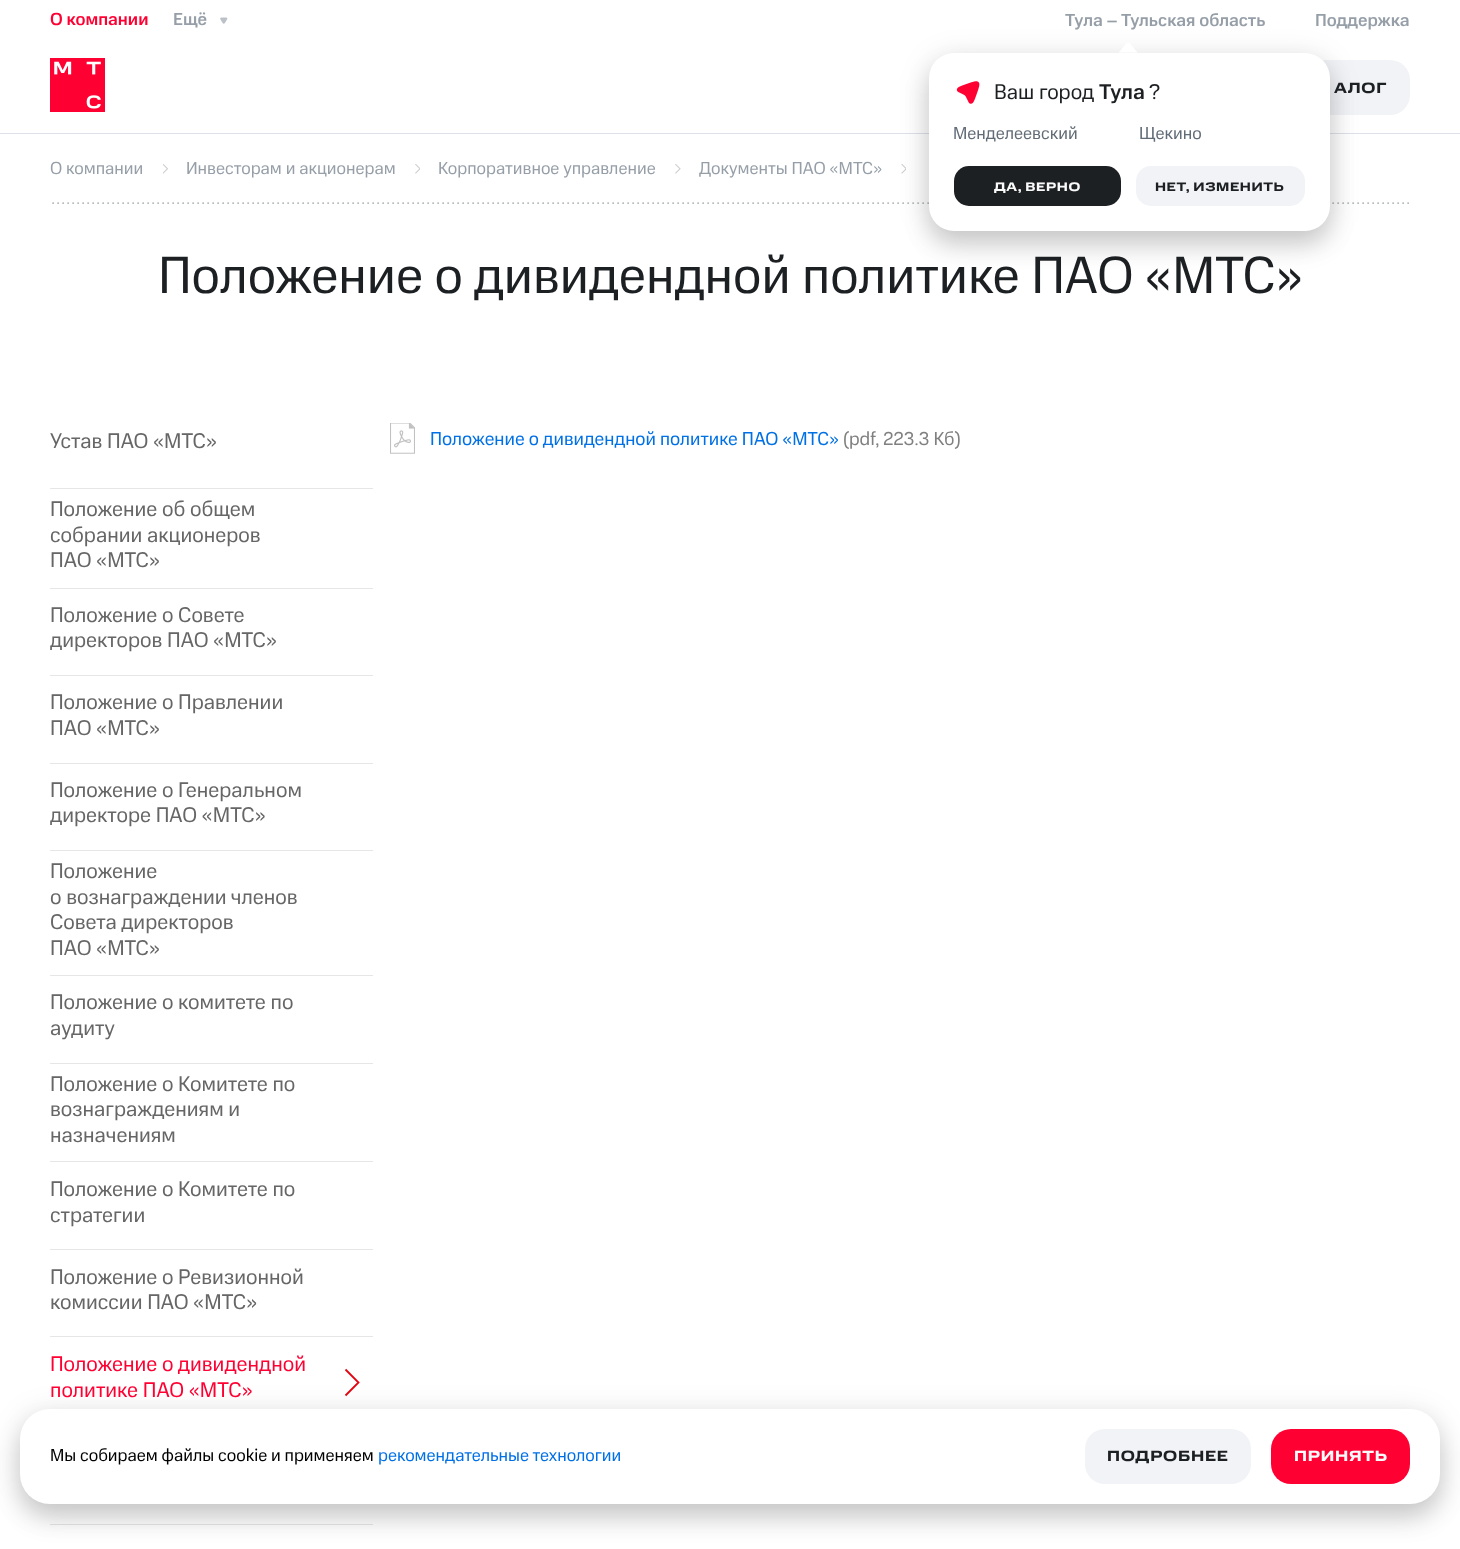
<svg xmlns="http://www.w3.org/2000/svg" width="1460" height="1549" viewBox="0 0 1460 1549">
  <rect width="100%" height="100%" fill="#fff"/>
  <path d="M0 133h1460v1H0z" fill="#dee1e8"/>
  <image x="220" y="17" width="8" height="7" href="img/1.png"/>
  <rect x="1246" y="60" width="164" height="55" rx="20" fill="#f2f3f7"/>
  <image x="901" y="164" width="5" height="10" href="img/8.png"/>
  <image x="52" y="202" width="1357" height="2" href="img/9.png"/>
  <rect x="929" y="58" width="401" height="178" rx="25" fill="#0000001f" filter="blur(15px)"/>
  <rect x="929" y="68" width="401" height="178" rx="25" fill="#00000024" filter="blur(12.5px)"/>
  <image x="1119" y="43" width="18" height="10" href="img/2.png"/>
  <rect x="929" y="53" width="401" height="178" rx="25" fill="#fff"/>
  <image x="956" y="81" width="24" height="23" href="img/3.png"/>
  <rect x="954" y="166" width="167" height="40" rx="15" fill="#1d2023"/>
  <rect x="1136" y="166" width="169" height="40" rx="15" fill="#f2f3f7"/>
  <image x="50" y="58" width="55" height="54" href="img/4.png"/>
  <image x="163" y="164" width="5" height="10" href="img/5.png"/>
  <image x="415" y="164" width="5" height="10" href="img/6.png"/>
  <image x="675" y="164" width="6" height="10" href="img/7.png"/>
  <path d="M50 488h323v1H50z" fill="#e6e6e6"/>
  <path d="M50 588h323v1H50z" fill="#e6e6e6"/>
  <path d="M50 675h323v1H50z" fill="#e6e6e6"/>
  <path d="M50 763h323v1H50z" fill="#e6e6e6"/>
  <path d="M50 850h323v1H50z" fill="#e6e6e6"/>
  <path d="M50 975h323v1H50z" fill="#e6e6e6"/>
  <path d="M50 1063h323v1H50z" fill="#e6e6e6"/>
  <path d="M50 1161h323v1H50z" fill="#e6e6e6"/>
  <path d="M50 1249h323v1H50z" fill="#e6e6e6"/>
  <path d="M50 1336h323v1H50z" fill="#e6e6e6"/>
  <path d="M345.5 1369.5L358.5 1382.5L345.5 1395.5" fill="none" stroke="#e30611" stroke-width="1.8"/>
  <path d="M50 1524h323v1H50z" fill="#e6e6e6"/>
  <image x="390" y="423" width="25" height="31" href="img/10.png"/>
  <rect x="20" y="1424" width="1420" height="95" rx="30" fill="#00000024" filter="blur(12.5px)"/>
  <rect x="20" y="1414" width="1420" height="95" rx="30" fill="#0000001f" filter="blur(15px)"/>
  <rect x="20" y="1409" width="1420" height="95" rx="30" fill="#fff"/>
  <rect x="1085" y="1429" width="166" height="55" rx="20" fill="#f2f3f7"/>
  <rect x="1271" y="1429" width="139" height="55" rx="20" fill="#ff0032"/>
  <text x="50" y="25" font-family="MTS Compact" font-size="17.5" font-weight="500" fill="#ff0032">О компании</text>
  <g font-family="MTS Compact" font-size="17.5" font-weight="500" fill="#969fa8">
    <text x="173" y="25">Ещё</text>
    <text x="1065" y="26">Тула – Тульская область</text>
  </g>
  <text x="994" y="99" font-family="MTS Compact" font-size="21.25" fill="#1d2023">Ваш город</text>
  <text x="1099" y="99" font-family="MTS Compact" font-size="21.25" font-weight="500" fill="#1d2023">Тула</text>
  <text x="1149" y="99" font-family="MTS Compact" font-size="21.25" fill="#1d2023">?</text>
  <g font-family="MTS Compact" font-size="17.5" fill="#626c77">
    <text x="953" y="139">Менделеевский</text>
    <text x="1139" y="139">Щекино</text>
  </g>
  <text x="994" y="191" font-family="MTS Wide" font-size="12.5" font-weight="bold" letter-spacing="0.6" fill="#fafafa">ДА, ВЕРНО</text>
  <text x="1155" y="191" font-family="MTS Wide" font-size="12.5" font-weight="bold" letter-spacing="0.6" fill="#1d2023">НЕТ, ИЗМЕНИТЬ</text>
  <text x="1315" y="26" font-family="MTS Compact" font-size="17.5" font-weight="500" fill="#969fa8">Поддержка</text>
  <text x="1334" y="93" font-family="MTS Wide" font-size="15" font-weight="bold" letter-spacing="0.75" fill="#1d2023">АЛОГ</text>
  <g font-family="MTS Compact" font-size="17.5" fill="#969fa8">
    <text x="50" y="174">О компании</text>
    <text x="186" y="174">Инвесторам и акционерам</text>
    <text x="438" y="174">Корпоративное управление</text>
    <text x="699" y="174">Документы ПАО «МТС»</text>
  </g>
  <text x="158" y="293" font-family="MTS Compact" font-size="52.5" fill="#1d2023">Положение о дивидендной политике ПАО «МТС»</text>
  <g font-family="MTS Compact" font-size="21.25" fill="#666">
    <text x="50" y="448">Устав ПАО «МТС»</text>
    <text x="50" y="516">Положение об общем</text>
    <text x="50" y="542">собрании акционеров</text>
    <text x="50" y="567">ПАО «МТС»</text>
    <text x="50" y="622">Положение о Совете</text>
    <text x="50" y="647">директоров ПАО «МТС»</text>
    <text x="50" y="709">Положение о Правлении</text>
    <text x="50" y="735">ПАО «МТС»</text>
    <text x="50" y="797">Положение о Генеральном</text>
    <text x="50" y="822">директоре ПАО «МТС»</text>
    <text x="50" y="878">Положение</text>
    <text x="50" y="904">о вознаграждении членов</text>
    <text x="50" y="929">Совета директоров</text>
    <text x="50" y="955">ПАО «МТС»</text>
    <text x="50" y="1009">Положение о комитете по</text>
    <text x="50" y="1035">аудиту</text>
    <text x="50" y="1091">Положение о Комитете по</text>
    <text x="50" y="1116">вознаграждениям и</text>
    <text x="50" y="1142">назначениям</text>
    <text x="50" y="1196">Положение о Комитете по</text>
    <text x="50" y="1222">стратегии</text>
    <text x="50" y="1284">Положение о Ревизионной</text>
    <text x="50" y="1309">комиссии ПАО «МТС»</text>
  </g>
  <g font-family="MTS Compact" font-size="21.25" fill="#ff0032">
    <text x="50" y="1371">Положение о дивидендной</text>
    <text x="50" y="1397">политике ПАО «МТС»</text>
  </g>
  <text x="430" y="445" font-family="MTS Compact" font-size="18.75" fill="#0070e5">Положение о дивидендной политике ПАО «МТС»</text>
  <text x="843" y="445" font-family="MTS Compact" font-size="18.75" fill="#808080">(pdf, 223.3 Кб)</text>
  <text x="50" y="1461" font-family="MTS Compact" font-size="17.5" fill="#000">Мы собираем файлы cookie и применяем</text>
  <text x="378" y="1461" font-family="MTS Compact" font-size="17.5" fill="#0070e5">рекомендательные технологии</text>
  <text x="1107" y="1461" font-family="MTS Wide" font-size="15" font-weight="bold" letter-spacing="0.75" fill="#1d2023">ПОДРОБНЕЕ</text>
  <text x="1294" y="1461" font-family="MTS Wide" font-size="15" font-weight="bold" letter-spacing="0.75" fill="#fafafa">ПРИНЯТЬ</text>
</svg>
